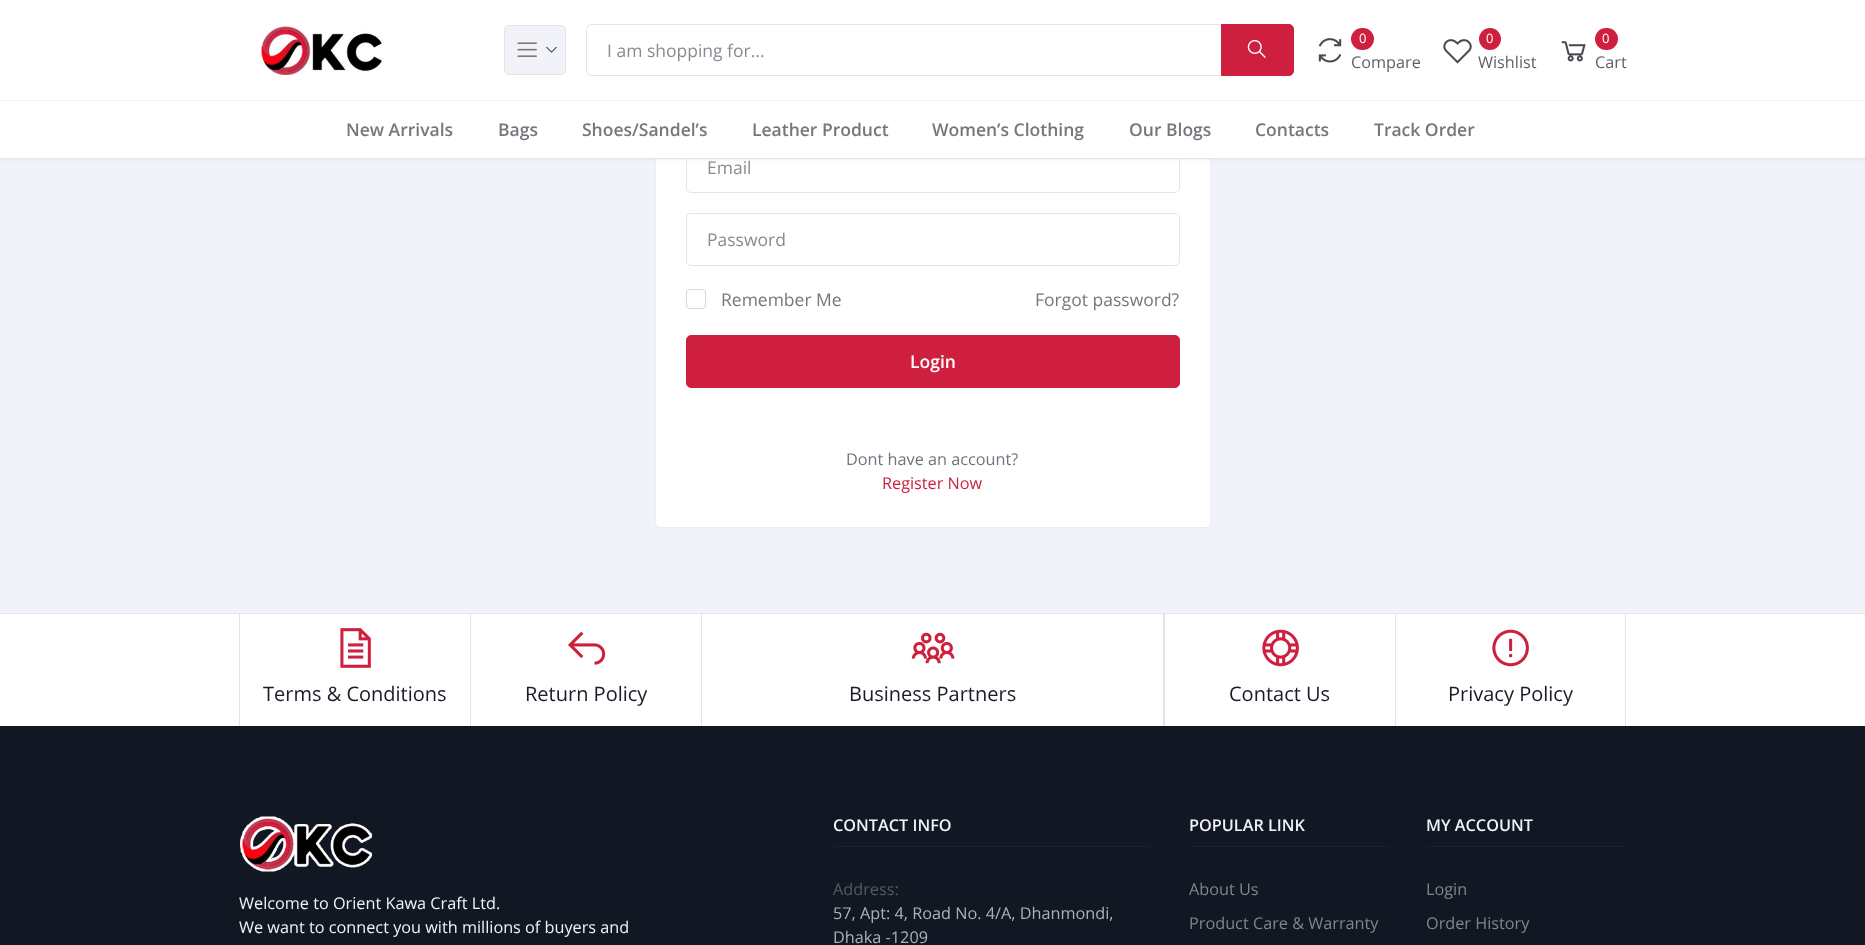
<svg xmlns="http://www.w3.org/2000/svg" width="1865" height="945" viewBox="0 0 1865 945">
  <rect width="100%" height="100%" fill="#f2f3f8"/>
  <rect x="655.5" y="34.5" width="555" height="493" rx="4.5" fill="#fff" stroke="#ebedf2"/>
  <rect x="686.5" y="140.5" width="493" height="52" rx="4.5" fill="none" stroke="#e2e5ec"/>
  <path d="M0 1h1865v159H0z" fill="#0000000d" filter="blur(1px)"/>
  <path d="M0 0h1865v158H0z" fill="#fff"/>
  <path d="M0 158h1865v1H0z" fill="#e2e5ec"/>
  <image x="261" y="25" width="124" height="51" href="img/1.png"/>
  <rect x="504.5" y="25.5" width="61" height="49" rx="4.5" fill="#f2f3f8" stroke="#e2e5ec"/>
  <image x="517" y="42" width="20" height="15" href="img/2.png"/>
  <image x="546" y="46" width="11" height="7" href="img/3.png"/>
  <path d="M591 24.5H1222.5V75.5H591C588.5 75.5 586.5 73.5 586.5 71V29C586.5 26.5 588.5 24.5 591 24.5Z" fill="none" stroke="#e2e5ec"/>
  <path d="M1221.5 24.5H1289C1291.5 24.5 1293.5 26.5 1293.5 29V71C1293.5 73.5 1291.5 75.5 1289 75.5H1221.5Z" fill="#ce203e" stroke="#ce203e"/>
  <image x="1247" y="39" width="19" height="19" href="img/4.png"/>
  <image x="1318" y="38" width="24" height="25" href="img/5.png"/>
  <rect x="1351" y="28" width="23" height="22" rx="11" fill="#ce203e"/>
  <image x="1443" y="39" width="29" height="25" href="img/6.png"/>
  <circle cx="1490" cy="39" r="11" fill="#ce203e"/>
  <image x="1561" y="41" width="25" height="21" href="img/7.png"/>
  <rect x="1595" y="28" width="23" height="22" rx="11" fill="#ce203e"/>
  <path d="M0 100h1865v1H0z" fill="#edf2f7"/>
  <rect x="686.5" y="213.5" width="493" height="52" rx="4.5" fill="none" stroke="#e2e5ec"/>
  <rect x="686.5" y="289.5" width="19" height="19" rx="3.5" fill="none" stroke="#d1d7e2"/>
  <rect x="686.5" y="335.5" width="493" height="52" rx="4.5" fill="#ce203e" stroke="#ce203e"/>
  <path d="M0 614h1865v112H0z" fill="#fff"/>
  <path d="M0 613h1865v1H0z" fill="#e2e5ec"/>
  <path d="M239 614h1v112H239z" fill="#e2e5ec"/>
  <image x="340" y="628" width="31" height="40" href="img/8.png"/>
  <path d="M470 614h1v112H470z" fill="#e2e5ec"/>
  <image x="568" y="631" width="38" height="34" href="img/9.png"/>
  <path d="M1163 614h2v112H1163z" fill="#e2e5ec"/>
  <path d="M701 614h1v112H701z" fill="#e2e5ec"/>
  <image x="911" y="632" width="44" height="32" href="img/10.png"/>
  <image x="1262" y="629" width="37" height="38" href="img/11.png"/>
  <path d="M1625 614h1v112H1625z" fill="#e2e5ec"/>
  <path d="M1395 614h1v112H1395z" fill="#e2e5ec"/>
  <image x="1492" y="629" width="37" height="38" href="img/12.png"/>
  <path d="M0 726h1865v219H0z" fill="#111723"/>
  <image x="240" y="816" width="133" height="56" href="img/13.png"/>
  <path d="M833 846h318v1H833z" fill="#1a202c"/>
  <path d="M1189 846h200v1H1189z" fill="#1a202c"/>
  <path d="M1426 846h200v1H1426z" fill="#1a202c"/>
  <text x="607" y="57" font-family="Open Sans" font-size="17.5" fill="#898b92">I am shopping for...</text>
  <text x="1359" y="43" font-family="Open Sans" font-size="13" fill="#fff">0</text>
  <text x="1351" y="68" font-family="Open Sans" font-size="16.25" fill="#5f5f69">Compare</text>
  <text x="1486" y="43" font-family="Open Sans" font-size="13" fill="#fff">0</text>
  <text x="1478" y="68" font-family="Open Sans" font-size="16.25" fill="#5f5f69">Wishlist</text>
  <text x="1602" y="43" font-family="Open Sans" font-size="13" fill="#fff">0</text>
  <text x="1595" y="68" font-family="Open Sans" font-size="16.25" fill="#5f5f69">Cart</text>
  <g font-family="Open Sans" font-size="17.5" font-weight="600" fill="#76767e">
    <text x="346" y="136">New Arrivals</text>
    <text x="498" y="136">Bags</text>
    <text x="582" y="136">Shoes/Sandel’s</text>
    <text x="752" y="136">Leather Product</text>
    <text x="932" y="136">Women’s Clothing</text>
    <text x="1129" y="136">Our Blogs</text>
    <text x="1255" y="136">Contacts</text>
    <text x="1374" y="136">Track Order</text>
  </g>
  <g font-family="Open Sans" font-size="17.5" fill="#898b92">
    <text x="707" y="174">Email</text>
    <text x="707" y="246">Password</text>
  </g>
  <g font-family="Open Sans" font-size="17.5" fill="#76767e">
    <text x="721" y="306">Remember Me</text>
    <text x="1035" y="306">Forgot password?</text>
  </g>
  <text x="910" y="368" font-family="Open Sans" font-size="17.5" font-weight="600" fill="#fff">Login</text>
  <text x="846" y="465" font-family="Open Sans" font-size="16.25" fill="#6c757d">Dont have an account?</text>
  <text x="882" y="489" font-family="Open Sans" font-size="16.25" fill="#ce203e">Register Now</text>
  <g font-family="Open Sans" font-size="20" fill="#1b1b28">
    <text x="263" y="701">Terms &amp; Conditions</text>
    <text x="525" y="701">Return Policy</text>
    <text x="849" y="701">Business Partners</text>
    <text x="1229" y="701">Contact Us</text>
    <text x="1448" y="701">Privacy Policy</text>
  </g>
  <g font-family="Open Sans" font-size="16.25" fill="#f2f3f8">
    <text x="239" y="909">Welcome to Orient Kawa Craft Ltd.</text>
    <text x="239" y="933">We want to connect you with millions of buyers and</text>
  </g>
  <text x="833" y="831" font-family="Open Sans" font-size="16.25" font-weight="600" fill="#f2f3f8">CONTACT INFO</text>
  <text x="833" y="895" font-family="Open Sans" font-size="16.25" fill="#555963">Address:</text>
  <g font-family="Open Sans" font-size="16.25" fill="#afb1b8">
    <text x="833" y="919">57, Apt: 4, Road No. 4/A, Dhanmondi,</text>
    <text x="833" y="943">Dhaka -1209</text>
  </g>
  <text x="1189" y="831" font-family="Open Sans" font-size="16.25" font-weight="600" fill="#f2f3f8">POPULAR LINK</text>
  <g font-family="Open Sans" font-size="16.25" fill="#82858e">
    <text x="1189" y="895">About Us</text>
    <text x="1189" y="929">Product Care &amp; Warranty</text>
  </g>
  <text x="1426" y="831" font-family="Open Sans" font-size="16.25" font-weight="600" fill="#f2f3f8">MY ACCOUNT</text>
  <g font-family="Open Sans" font-size="16.25" fill="#82858e">
    <text x="1426" y="895">Login</text>
    <text x="1426" y="929">Order History</text>
  </g>
</svg>
